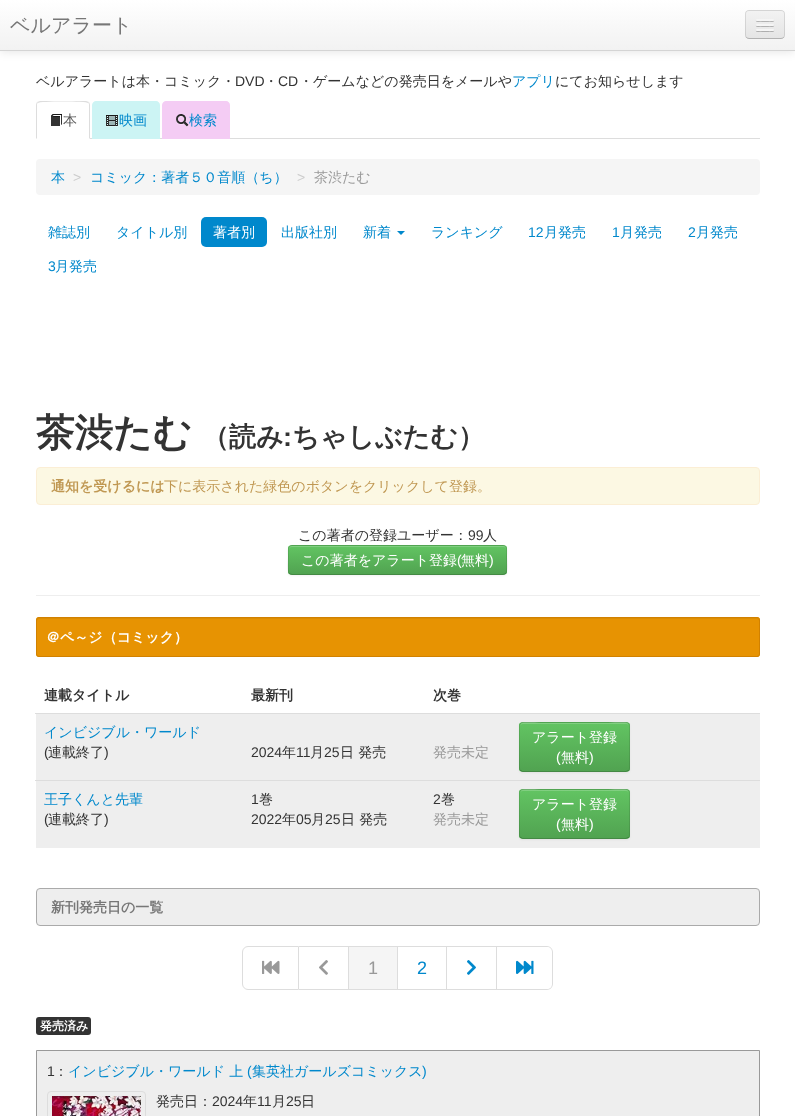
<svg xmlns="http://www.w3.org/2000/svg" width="795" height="1116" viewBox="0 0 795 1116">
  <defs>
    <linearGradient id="g1" gradientUnits="userSpaceOnUse" x1="398" y1="0" x2="398" y2="50"><stop offset="0" stop-color="#fff"/><stop offset="1" stop-color="#f2f2f2"/></linearGradient>
    <clipPath id="clip1"><rect x="745" y="10" width="40" height="29" rx="4"/></clipPath>
    <linearGradient id="g2" gradientUnits="userSpaceOnUse" x1="765" y1="11" x2="765" y2="38"><stop offset="0" stop-color="#f2f2f2"/><stop offset="1" stop-color="#e5e5e5"/></linearGradient>
    <clipPath id="clip2"><rect x="288" y="545" width="219" height="30" rx="4"/></clipPath>
    <linearGradient id="g3" gradientUnits="userSpaceOnUse" x1="398" y1="546" x2="398" y2="574"><stop offset="0" stop-color="#62c462"/><stop offset="1" stop-color="#51a351"/></linearGradient>
    <clipPath id="clip3"><rect x="519" y="722" width="111" height="50" rx="4"/></clipPath>
    <linearGradient id="g4" gradientUnits="userSpaceOnUse" x1="575" y1="723" x2="575" y2="771"><stop offset="0" stop-color="#62c462"/><stop offset="1" stop-color="#51a351"/></linearGradient>
    <clipPath id="clip4"><rect x="519" y="789" width="111" height="50" rx="4"/></clipPath>
    <linearGradient id="g5" gradientUnits="userSpaceOnUse" x1="575" y1="790" x2="575" y2="838"><stop offset="0" stop-color="#62c462"/><stop offset="1" stop-color="#51a351"/></linearGradient>
  </defs>
  <rect width="100%" height="100%" fill="#fff"/>
  <path d="M0 1h795v51H0z" fill="#0000001a" filter="blur(5px)"/>
  <path d="M0 0h795v50H0z" fill="url(#g1)"/>
  <path d="M0 50h795v1H0z" fill="#d4d4d4"/>
  <rect x="745" y="10" width="40" height="29" rx="4" fill="#ededed"/>
  <g clip-path="url(#clip1)">
    <path d="M745 11h40v27H745z" fill="url(#g2)"/>
  </g>
  <path d="M783.5 37.5C783 38 782 38.5 781 38.5H749C748 38.5 747 38 746.5 37.5" fill="none" stroke="#00000040"/>
  <path d="M746.5 37.5C746 37 745.5 36 745.5 35V14C745.5 13 746 12 746.5 11.5C747 11 748 10.5 749 10.5H781C782 10.5 783 11 783.5 11.5C784 12 784.5 13 784.5 14V35C784.5 36 784 37 783.5 37.5" fill="none" stroke="#0000001a"/>
  <path d="M756 20.5C755 22.5 759.5 22 759.5 22H770.5C770.5 22 775 22.5 774 20.5C773 21.5 766.5 21 765 21C763.5 21 757 21.5 756 20.5Z" fill="#b2b2b2"/>
  <rect x="756" y="19" width="18" height="2" rx="1" fill="#f5f5f5"/>
  <path d="M756 25.5C755 27.5 759.5 27 759.5 27H770.5C770.5 27 775 27.5 774 25.5C773 26.5 766.5 26 765 26C763.5 26 757 26.5 756 25.5Z" fill="#b0b0b0"/>
  <rect x="756" y="24" width="18" height="2" rx="1" fill="#f5f5f5"/>
  <path d="M756 30.5C755 32.5 759.5 32 759.5 32H770.5C770.5 32 775 32.5 774 30.5C773 31.5 766.5 31 765 31C763.5 31 757 31.5 756 30.5Z" fill="#aeaeae"/>
  <rect x="756" y="29" width="18" height="2" rx="1" fill="#f5f5f5"/>
  <path d="M90 138h670v1H90z" fill="#ddd"/>
  <path d="M40 101L37 102L38 103C39 101 87 101 88 103L89 102L86 101Z" fill="#ddd"/>
  <path d="M90 139V105C90 104 89.5 103 89 102L88 103C89 103 89 104 89 105V138ZM36 139L37 138V105C37 104 37 103 38 103L37 102C36.5 103 36 104 36 105Z" fill="#ddd"/>
  <image x="51" y="114" width="11" height="12" href="img/1.png"/>
  <path d="M96 101H156C158 101 160 103 160 105V139H92V105C92 103 94 101 96 101Z" fill="#ccf4f4"/>
  <image x="106" y="115" width="12" height="12" href="img/2.png"/>
  <path d="M166 101H226C228 101 230 103 230 105V139H162V105C162 103 164 101 166 101Z" fill="#f4ccf4"/>
  <image x="176" y="114" width="13" height="13" href="img/3.png"/>
  <rect x="36" y="159" width="724" height="36" rx="4" fill="#f5f5f5"/>
  <rect x="201" y="217" width="66" height="30" rx="5" fill="#08c"/>
  <path d="M397 231H405L401 235Z" fill="#08c"/>
  <rect x="36.5" y="467.5" width="723" height="37" rx="3.5" fill="#fcf8e3" stroke="#fbeed5"/>
  <rect x="288" y="546" width="219" height="30" rx="4" fill="#0000000d" filter="blur(1px)"/>
  <rect x="288" y="545" width="219" height="30" rx="4" fill="#5bb75b"/>
  <g clip-path="url(#clip2)">
    <path d="M288 546h219v28H288z" fill="url(#g3)"/>
  </g>
  <path d="M292 547H503C505 547 506 548 506 550V549C506 547 505 546 503 546H292C290 546 289 547 289 549V550C289 548 290 547 292 547Z" fill="#81cf81"/>
  <path d="M505.5 573.5C505 574 504 574.5 503 574.5H292C291 574.5 290 574 289.5 573.5" fill="none" stroke="#00000040"/>
  <path d="M289.5 573.5C287 571 288.5 559.5 288.5 556.5C288.5 553.5 287 545.5 292 545.5H503C508 545.5 506.5 553.5 506.5 556.5C506.5 559.5 508 571 505.5 573.5" fill="none" stroke="#0000001a"/>
  <path d="M36 595h724v1H36z" fill="#eee"/>
  <rect x="36" y="617" width="724" height="40" rx="3" fill="#e79302"/>
  <path d="M39 619H757C758 619 759 620 759 621C759 620 759 618 757 618H39C37 618 37 620 37 621C37 620 38 619 39 619Z" fill="#db8c02"/>
  <rect x="36.5" y="617.5" width="723" height="39" rx="2.5" fill="none" stroke="#d18100"/>
  <path d="M36 714h724v66H36z" fill="#eee"/>
  <path d="M35 713h725v1H35z" fill="#ddd"/>
  <rect x="519" y="723" width="111" height="50" rx="4" fill="#0000000d" filter="blur(1px)"/>
  <rect x="519" y="722" width="111" height="50" rx="4" fill="#5bb75b"/>
  <g clip-path="url(#clip3)">
    <path d="M519 723h111v48H519z" fill="url(#g4)"/>
  </g>
  <path d="M523 724H626C628 724 629 725 629 727C629 718 611 723 609 723H540C538 723 520 718 520 727C520 725 521 724 523 724Z" fill="#ffffff33"/>
  <path d="M628.5 770.5L626 771.5H522.5L520.5 770.5" fill="none" stroke="#00000040"/>
  <path d="M520.5 770.5C520 770 519.5 769 519.5 768V726C519.5 725 520 724 520.5 723.5C521 723 522 722.5 523 722.5H626C627 722.5 628 723 628.5 723.5C629 724 629.5 725 629.5 726V768C629.5 769 629 770 628.5 770.5" fill="none" stroke="#0000001a"/>
  <path d="M36 781h724v67H36z" fill="#eee"/>
  <path d="M35 780h725v1H35z" fill="#ddd"/>
  <rect x="519" y="790" width="111" height="50" rx="4" fill="#0000000d" filter="blur(1px)"/>
  <rect x="519" y="789" width="111" height="50" rx="4" fill="#5bb75b"/>
  <g clip-path="url(#clip4)">
    <path d="M519 790h111v48H519z" fill="url(#g5)"/>
  </g>
  <path d="M523 791H626C628 791 629 792 629 794C629 785 611 790 609 790H540C538 790 520 785 520 794C520 792 521 791 523 791Z" fill="#ffffff33"/>
  <path d="M628.5 837.5L626 838.5H522.5L520.5 837.5" fill="none" stroke="#00000040"/>
  <path d="M520.5 837.5C520 837 519.5 836 519.5 835V793C519.5 792 520 791 520.5 790.5C521 790 522 789.5 523 789.5H626C627 789.5 628 790 628.5 790.5C629 791 629.5 792 629.5 793V835C629.5 836 629 837 628.5 837.5" fill="none" stroke="#0000001a"/>
  <rect x="36.5" y="888.5" width="723" height="37" rx="3.5" fill="#eee" stroke="#aaa"/>
  <path d="M248 946.5H298.5V989.5H248C245 989.5 242.5 987 242.5 984V952C242.5 949 245 946.5 248 946.5Z" fill="none" stroke="#ddd"/>
  <image x="262" y="960" width="18" height="14" href="img/4.png"/>
  <path d="M299 946h198v1H299z" fill="#ddd"/>
  <path d="M348 946h1v44H348z" fill="#ddd"/>
  <path d="M299 989h50v1H299z" fill="#ddd"/>
  <image x="319" y="960" width="9" height="15" href="img/5.png"/>
  <path d="M349 947h48v42H349z" fill="#f5f5f5"/>
  <path d="M397 946h1v44H397z" fill="#ddd"/>
  <path d="M349 989h49v1H349z" fill="#ddd"/>
  <path d="M446 946h1v44H446z" fill="#ddd"/>
  <path d="M398 989h49v1H398z" fill="#ddd"/>
  <path d="M496 946h1v44H496z" fill="#ddd"/>
  <path d="M447 989h50v1H447z" fill="#ddd"/>
  <image x="467" y="960" width="9" height="15" href="img/6.png"/>
  <path d="M497 946H547C550 946 553 949 553 952V984C553 987 550 990 547 990H497ZM497 947H547C550 947 552 949 552 952V984C552 987 550 989 547 989H497Z" fill="#ddd" fill-rule="evenodd"/>
  <image x="516" y="960" width="18" height="14" href="img/7.png"/>
  <rect x="36" y="1017" width="55" height="18" rx="3" fill="#333"/>
  <path d="M36.5 1050.5h723v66H36.5z" fill="#eee" stroke="#999"/>
  <rect x="47.5" y="1091.5" width="98" height="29" rx="3.5" fill="none" stroke="#ddd"/>
  <image x="52" y="1096" width="89" height="20" href="img/8.png"/>
  <text x="10" y="32" font-family="WenQuanYi Zen Hei" font-size="20" font-weight="500" fill="#777">ベルアラート</text>
  <text x="36" y="86" font-family="WenQuanYi Zen Hei" font-size="14" font-weight="500" fill="#333">ベルアラートは本・コミック・</text>
  <text x="235" y="86" font-family="Liberation Sans" font-size="14" fill="#333">DVD</text>
  <text x="264" y="86" font-family="WenQuanYi Zen Hei" font-size="14" font-weight="500" fill="#333">・</text>
  <text x="278" y="86" font-family="Liberation Sans" font-size="14" fill="#333">CD</text>
  <text x="299" y="86" font-family="WenQuanYi Zen Hei" font-size="14" font-weight="500" fill="#333">・ゲームなどの発売日をメールや</text>
  <text x="512" y="86" font-family="WenQuanYi Zen Hei" font-size="14" font-weight="500" fill="#08c">アプリ</text>
  <text x="555" y="86" font-family="WenQuanYi Zen Hei" font-size="14" font-weight="500" fill="#333">にてお知らせします</text>
  <text x="63" y="125" font-family="WenQuanYi Zen Hei" font-size="14" font-weight="500" fill="#555">本</text>
  <g font-family="WenQuanYi Zen Hei" font-size="14" font-weight="500" fill="#08c">
    <text x="119" y="125">映画</text>
    <text x="189" y="125">検索</text>
    <text x="51" y="182">本</text>
  </g>
  <text x="73" y="182" font-family="Liberation Sans" font-size="14" fill="#ccc">&gt;</text>
  <text x="90" y="182" font-family="WenQuanYi Zen Hei" font-size="14" font-weight="500" fill="#08c">コミック：著者５０音順（ち）</text>
  <text x="297" y="182" font-family="Liberation Sans" font-size="14" fill="#ccc">&gt;</text>
  <text x="314" y="182" font-family="WenQuanYi Zen Hei" font-size="14" font-weight="500" fill="#999">茶渋たむ</text>
  <g font-family="WenQuanYi Zen Hei" font-size="14" font-weight="500" fill="#08c">
    <text x="48" y="237">雑誌別</text>
    <text x="116" y="237">タイトル別</text>
  </g>
  <text x="213" y="237" font-family="WenQuanYi Zen Hei" font-size="14" font-weight="500" fill="#fff">著者別</text>
  <g font-family="WenQuanYi Zen Hei" font-size="14" font-weight="500" fill="#08c">
    <text x="281" y="237">出版社別</text>
    <text x="363" y="237">新着</text>
    <text x="431" y="237">ランキング</text>
  </g>
  <text x="528" y="237" font-family="Liberation Sans" font-size="14" fill="#08c">12</text>
  <text x="544" y="237" font-family="WenQuanYi Zen Hei" font-size="14" font-weight="500" fill="#08c">月発売</text>
  <text x="612" y="237" font-family="Liberation Sans" font-size="14" fill="#08c">1</text>
  <text x="620" y="237" font-family="WenQuanYi Zen Hei" font-size="14" font-weight="500" fill="#08c">月発売</text>
  <text x="688" y="237" font-family="Liberation Sans" font-size="14" fill="#08c">2</text>
  <text x="696" y="237" font-family="WenQuanYi Zen Hei" font-size="14" font-weight="500" fill="#08c">月発売</text>
  <text x="48" y="271" font-family="Liberation Sans" font-size="14" fill="#08c">3</text>
  <text x="55" y="271" font-family="WenQuanYi Zen Hei" font-size="14" font-weight="500" fill="#08c">月発売</text>
  <text x="36" y="446" font-family="WenQuanYi Zen Hei" font-size="38.5" font-weight="bold" fill="#333">茶渋たむ</text>
  <text x="202" y="446" font-family="WenQuanYi Zen Hei" font-size="27" font-weight="bold" fill="#333">（読み</text>
  <text x="283" y="446" font-family="Liberation Sans" font-size="27" font-weight="bold" fill="#333">:</text>
  <text x="292" y="446" font-family="WenQuanYi Zen Hei" font-size="27" font-weight="bold" fill="#333">ちゃしぶたむ）</text>
  <text x="51" y="491" font-family="WenQuanYi Zen Hei" font-size="14" font-weight="bold" fill="#c09853">通知を受けるには</text>
  <text x="164" y="491" font-family="WenQuanYi Zen Hei" font-size="14" font-weight="500" fill="#c09853">下に表示された緑色のボタンをクリックして登録。</text>
  <text x="298" y="540" font-family="WenQuanYi Zen Hei" font-size="14" font-weight="500" fill="#333">この著者の登録ユーザー：</text>
  <text x="468" y="540" font-family="Liberation Sans" font-size="14" fill="#333">99</text>
  <text x="483" y="540" font-family="WenQuanYi Zen Hei" font-size="14" font-weight="500" fill="#333">人</text>
  <text x="301" y="565" font-family="WenQuanYi Zen Hei" font-size="14" font-weight="500" fill="#fff">この著者をアラート登録</text>
  <text x="457" y="565" font-family="Liberation Sans" font-size="14" fill="#fff">(</text>
  <text x="461" y="565" font-family="WenQuanYi Zen Hei" font-size="14" font-weight="500" fill="#fff">無料</text>
  <text x="489" y="565" font-family="Liberation Sans" font-size="14" fill="#fff">)</text>
  <text x="46" y="642" font-family="WenQuanYi Zen Hei" font-size="14" font-weight="bold" fill="#fff">＠ペ～ジ（コミック）</text>
  <g font-family="WenQuanYi Zen Hei" font-size="14" font-weight="bold" fill="#333">
    <text x="44" y="700">連載タイトル</text>
    <text x="251" y="700">最新刊</text>
    <text x="433" y="700">次巻</text>
  </g>
  <text x="44" y="737" font-family="WenQuanYi Zen Hei" font-size="14" font-weight="500" fill="#08c">インビジブル・ワールド</text>
  <text x="44" y="757" font-family="Liberation Sans" font-size="14" fill="#333">(</text>
  <text x="48" y="757" font-family="WenQuanYi Zen Hei" font-size="14" font-weight="500" fill="#333">連載終了</text>
  <g font-family="Liberation Sans" font-size="14" fill="#333">
    <text x="104" y="757">)</text>
    <text x="251" y="757">2024</text>
  </g>
  <text x="282" y="757" font-family="WenQuanYi Zen Hei" font-size="14" font-weight="500" fill="#333">年</text>
  <text x="296" y="757" font-family="Liberation Sans" font-size="14" fill="#333">11</text>
  <text x="310" y="757" font-family="WenQuanYi Zen Hei" font-size="14" font-weight="500" fill="#333">月</text>
  <text x="324" y="757" font-family="Liberation Sans" font-size="14" fill="#333">25</text>
  <text x="340" y="757" font-family="WenQuanYi Zen Hei" font-size="14" font-weight="500" fill="#333">日 発売</text>
  <text x="433" y="757" font-family="WenQuanYi Zen Hei" font-size="14" font-weight="500" fill="#999">発売未定</text>
  <text x="532" y="742" font-family="WenQuanYi Zen Hei" font-size="14" font-weight="500" fill="#fff">アラート登録</text>
  <text x="556" y="762" font-family="Liberation Sans" font-size="14" fill="#fff">(</text>
  <text x="561" y="762" font-family="WenQuanYi Zen Hei" font-size="14" font-weight="500" fill="#fff">無料</text>
  <text x="589" y="762" font-family="Liberation Sans" font-size="14" fill="#fff">)</text>
  <text x="44" y="804" font-family="WenQuanYi Zen Hei" font-size="14" font-weight="500" fill="#08c">王子くんと先輩</text>
  <text x="44" y="824" font-family="Liberation Sans" font-size="14" fill="#333">(</text>
  <text x="48" y="824" font-family="WenQuanYi Zen Hei" font-size="14" font-weight="500" fill="#333">連載終了</text>
  <g font-family="Liberation Sans" font-size="14" fill="#333">
    <text x="104" y="824">)</text>
    <text x="251" y="804">1</text>
  </g>
  <text x="259" y="804" font-family="WenQuanYi Zen Hei" font-size="14" font-weight="500" fill="#333">巻</text>
  <text x="251" y="824" font-family="Liberation Sans" font-size="14" fill="#333">2022</text>
  <text x="282" y="824" font-family="WenQuanYi Zen Hei" font-size="14" font-weight="500" fill="#333">年</text>
  <text x="296" y="824" font-family="Liberation Sans" font-size="14" fill="#333">05</text>
  <text x="311" y="824" font-family="WenQuanYi Zen Hei" font-size="14" font-weight="500" fill="#333">月</text>
  <text x="325" y="824" font-family="Liberation Sans" font-size="14" fill="#333">25</text>
  <text x="341" y="824" font-family="WenQuanYi Zen Hei" font-size="14" font-weight="500" fill="#333">日 発売</text>
  <text x="433" y="804" font-family="Liberation Sans" font-size="14" fill="#333">2</text>
  <text x="441" y="804" font-family="WenQuanYi Zen Hei" font-size="14" font-weight="500" fill="#333">巻</text>
  <text x="433" y="824" font-family="WenQuanYi Zen Hei" font-size="14" font-weight="500" fill="#999">発売未定</text>
  <text x="532" y="809" font-family="WenQuanYi Zen Hei" font-size="14" font-weight="500" fill="#fff">アラート登録</text>
  <text x="556" y="829" font-family="Liberation Sans" font-size="14" fill="#fff">(</text>
  <text x="561" y="829" font-family="WenQuanYi Zen Hei" font-size="14" font-weight="500" fill="#fff">無料</text>
  <text x="589" y="829" font-family="Liberation Sans" font-size="14" fill="#fff">)</text>
  <text x="51" y="912" font-family="WenQuanYi Zen Hei" font-size="14" font-weight="bold" fill="#777">新刊発売日の一覧</text>
  <text x="368" y="974" font-family="Liberation Sans" font-size="18" fill="#999">1</text>
  <text x="417" y="974" font-family="Liberation Sans" font-size="18" fill="#08c">2</text>
  <text x="40" y="1030" font-family="WenQuanYi Zen Hei" font-size="12" font-weight="bold" fill="#fff">発売済み</text>
  <text x="47" y="1076" font-family="Liberation Sans" font-size="14" fill="#333">1</text>
  <text x="54" y="1076" font-family="WenQuanYi Zen Hei" font-size="14" font-weight="500" fill="#333">：</text>
  <text x="68" y="1076" font-family="WenQuanYi Zen Hei" font-size="14" font-weight="500" fill="#08c">インビジブル・ワールド 上</text>
  <text x="247" y="1076" font-family="Liberation Sans" font-size="14" fill="#08c">(</text>
  <text x="252" y="1076" font-family="WenQuanYi Zen Hei" font-size="14" font-weight="500" fill="#08c">集英社ガールズコミックス</text>
  <text x="422" y="1076" font-family="Liberation Sans" font-size="14" fill="#08c">)</text>
  <text x="156" y="1106" font-family="WenQuanYi Zen Hei" font-size="14" font-weight="500" fill="#333">発売日：</text>
  <text x="212" y="1106" font-family="Liberation Sans" font-size="14" fill="#333">2024</text>
  <text x="243" y="1106" font-family="WenQuanYi Zen Hei" font-size="14" font-weight="500" fill="#333">年</text>
  <text x="257" y="1106" font-family="Liberation Sans" font-size="14" fill="#333">11</text>
  <text x="272" y="1106" font-family="WenQuanYi Zen Hei" font-size="14" font-weight="500" fill="#333">月</text>
  <text x="286" y="1106" font-family="Liberation Sans" font-size="14" fill="#333">25</text>
  <text x="301" y="1106" font-family="WenQuanYi Zen Hei" font-size="14" font-weight="500" fill="#333">日</text>
</svg>
